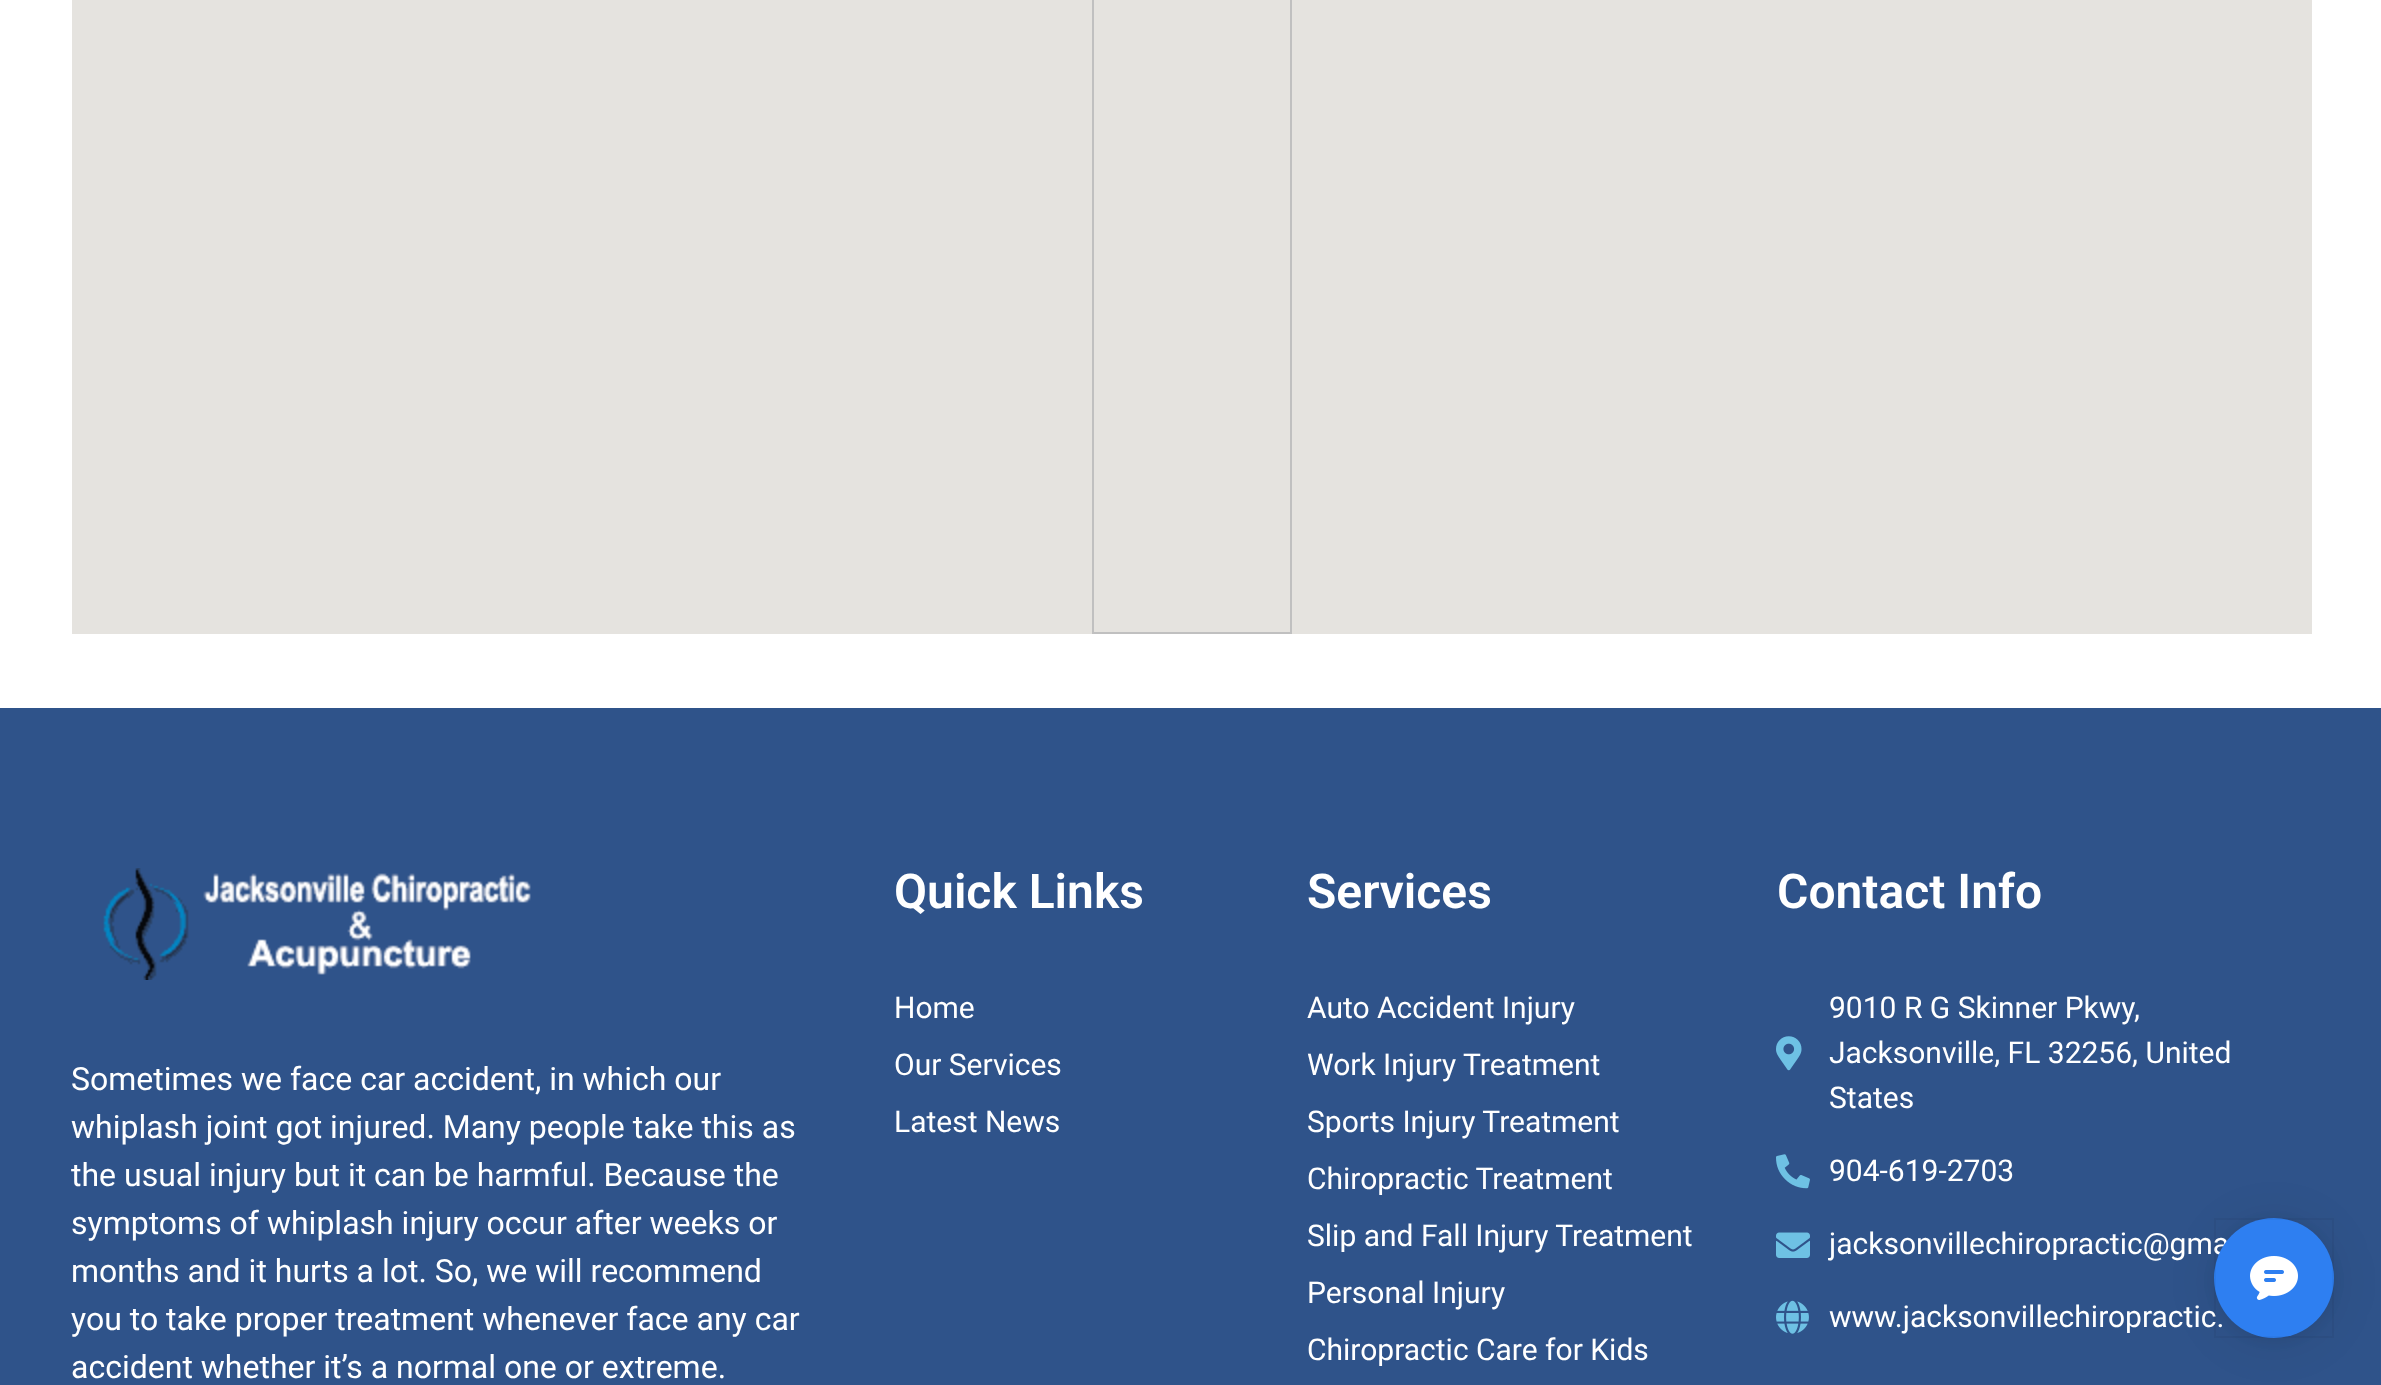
<svg xmlns="http://www.w3.org/2000/svg" width="2381" height="1385" viewBox="0 0 2381 1385">
  <rect width="100%" height="100%" fill="#fff"/>
  <image x="72" y="0" width="2240" height="634" href="img/1.png"/>
  <path d="M0 708h2381v677H0z" fill="#2f538a"/>
  <image x="103" y="868" width="428" height="112" href="img/2.png"/>
  <image x="1776" y="1036" width="26" height="35" href="img/3.png"/>
  <image x="1776" y="1154" width="34" height="35" href="img/4.png"/>
  <image x="1776" y="1232" width="34" height="26" href="img/5.png"/>
  <image x="1776" y="1300" width="33" height="34" href="img/6.png"/>
  <rect x="2214" y="1222" width="120" height="120" rx="60" fill="#00000014" filter="blur(24px)"/>
  <rect x="2214" y="1220" width="120" height="120" rx="60" fill="#0000000f" filter="blur(6px)"/>
  <g font-family="Roboto" font-size="32" fill="#fff">
    <text x="71" y="1090">Sometimes we face car accident, in which our</text>
    <text x="71" y="1138">whiplash joint got injured. Many people take this as</text>
    <text x="71" y="1186">the usual injury but it can be harmful. Because the</text>
    <text x="71" y="1234">symptoms of whiplash injury occur after weeks or</text>
    <text x="71" y="1282">months and it hurts a lot. So, we will recommend</text>
    <text x="71" y="1330">you to take proper treatment whenever face any car</text>
    <text x="71" y="1378">accident whether it’s a normal one or extreme.</text>
  </g>
  <text x="894" y="908" font-family="Roboto" font-size="48" font-weight="600" fill="#fff">Quick Links</text>
  <g font-family="Roboto" font-size="30" fill="#fff">
    <text x="894" y="1018">Home</text>
    <text x="894" y="1075">Our Services</text>
    <text x="894" y="1132">Latest News</text>
  </g>
  <text x="1307" y="908" font-family="Roboto" font-size="48" font-weight="600" fill="#fff">Services</text>
  <g font-family="Roboto" font-size="30" fill="#fff">
    <text x="1307" y="1018">Auto Accident Injury</text>
    <text x="1307" y="1075">Work Injury Treatment</text>
    <text x="1307" y="1132">Sports Injury Treatment</text>
    <text x="1307" y="1189">Chiropractic Treatment</text>
    <text x="1307" y="1246">Slip and Fall Injury Treatment</text>
    <text x="1307" y="1303">Personal Injury</text>
    <text x="1307" y="1360">Chiropractic Care for Kids</text>
  </g>
  <text x="1777" y="908" font-family="Roboto" font-size="48" font-weight="600" fill="#fff">Contact Info</text>
  <g font-family="Roboto" font-size="30" fill="#fff">
    <text x="1829" y="1018">9010 R G Skinner Pkwy,</text>
    <text x="1829" y="1063">Jacksonville, FL 32256, United</text>
    <text x="1829" y="1108">States</text>
    <text x="1829" y="1181">904-619-2703</text>
    <text x="1829" y="1254">jacksonvillechiropractic@gma</text>
    <text x="1829" y="1327">www.jacksonvillechiropractic.</text>
  </g>
  <circle cx="2274" cy="1278" r="60" fill="#2e7ff1"/>
  <path d="M2215 1219h118v118H2215z" fill="none" stroke="#0000000a" stroke-width="2"/>
  <image x="2250" y="1256" width="48" height="44" href="img/7.png"/>
</svg>
